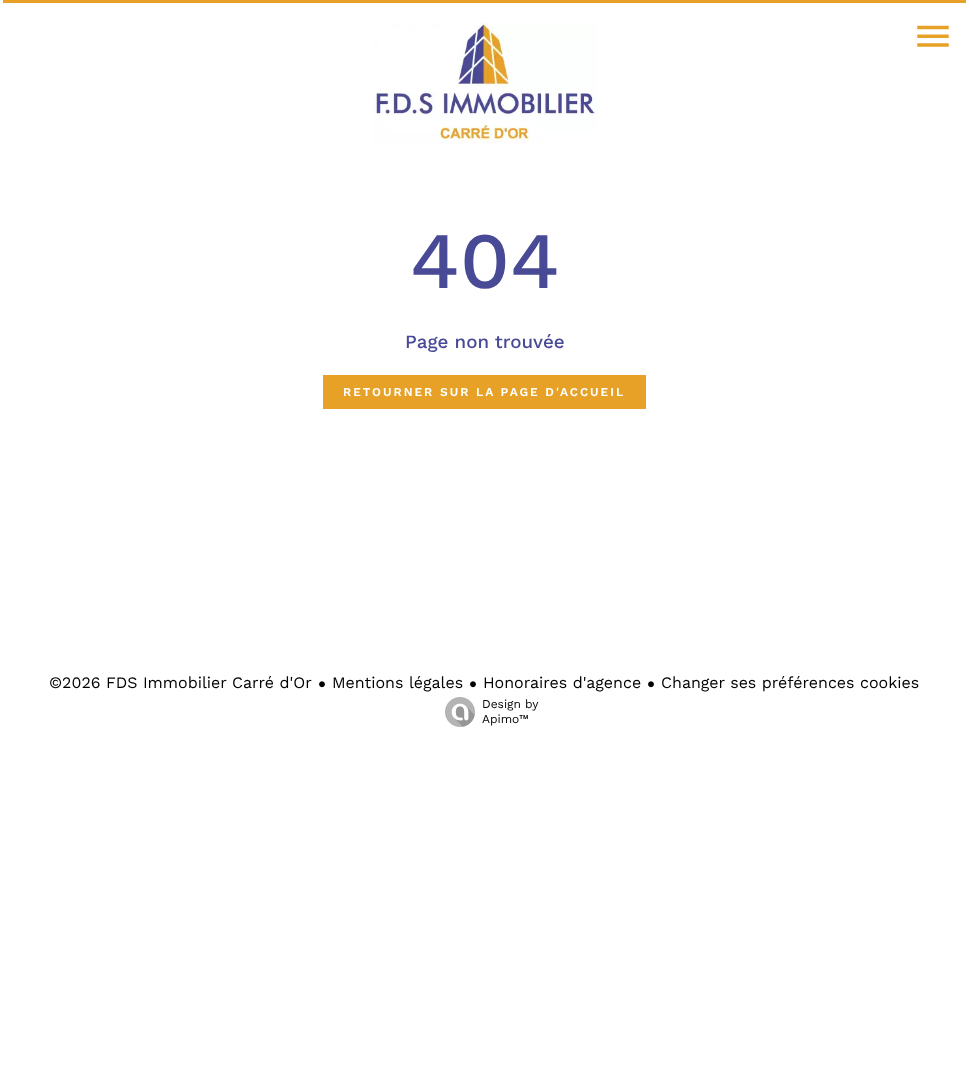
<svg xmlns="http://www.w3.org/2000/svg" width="969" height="1077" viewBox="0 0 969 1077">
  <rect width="100%" height="100%" fill="#fff"/>
  <path d="M3 0h963v3H3z" fill="#e6a126"/>
  <image x="373" y="22" width="225" height="121" href="img/1.png"/>
  <image x="917" y="25" width="32" height="22" href="img/2.png"/>
  <path d="M323 375h323v34H323z" fill="#e6a126"/>
  <image x="319" y="681" width="6" height="7" href="img/3.png"/>
  <image x="470" y="681" width="6" height="7" href="img/3.png"/>
  <image x="648" y="681" width="6" height="7" href="img/3.png"/>
  <image x="445" y="697" width="30" height="30" href="img/4.png"/>
  <text x="410" y="288" font-family="Work Sans" font-size="80" font-weight="500" fill="#494a96">404</text>
  <text x="405" y="348" font-family="Work Sans" font-size="18.75" font-weight="500" fill="#494a96">Page non trouvée</text>
  <text x="343" y="396" font-family="Work Sans" font-size="12" font-weight="600" letter-spacing="2" fill="#fff">RETOURNER SUR LA PAGE D'ACCUEIL</text>
  <g font-family="Work Sans" font-size="16" fill="#000">
    <text x="49" y="688">©2026 FDS Immobilier Carré d'Or</text>
    <text x="332" y="688">Mentions légales</text>
    <text x="483" y="688">Honoraires d'agence</text>
    <text x="661" y="688">Changer ses préférences cookies</text>
  </g>
  <g font-family="Work Sans" font-size="12" fill="#000">
    <text x="482" y="708">Design by</text>
    <text x="482" y="723">Apimo™</text>
  </g>
</svg>
